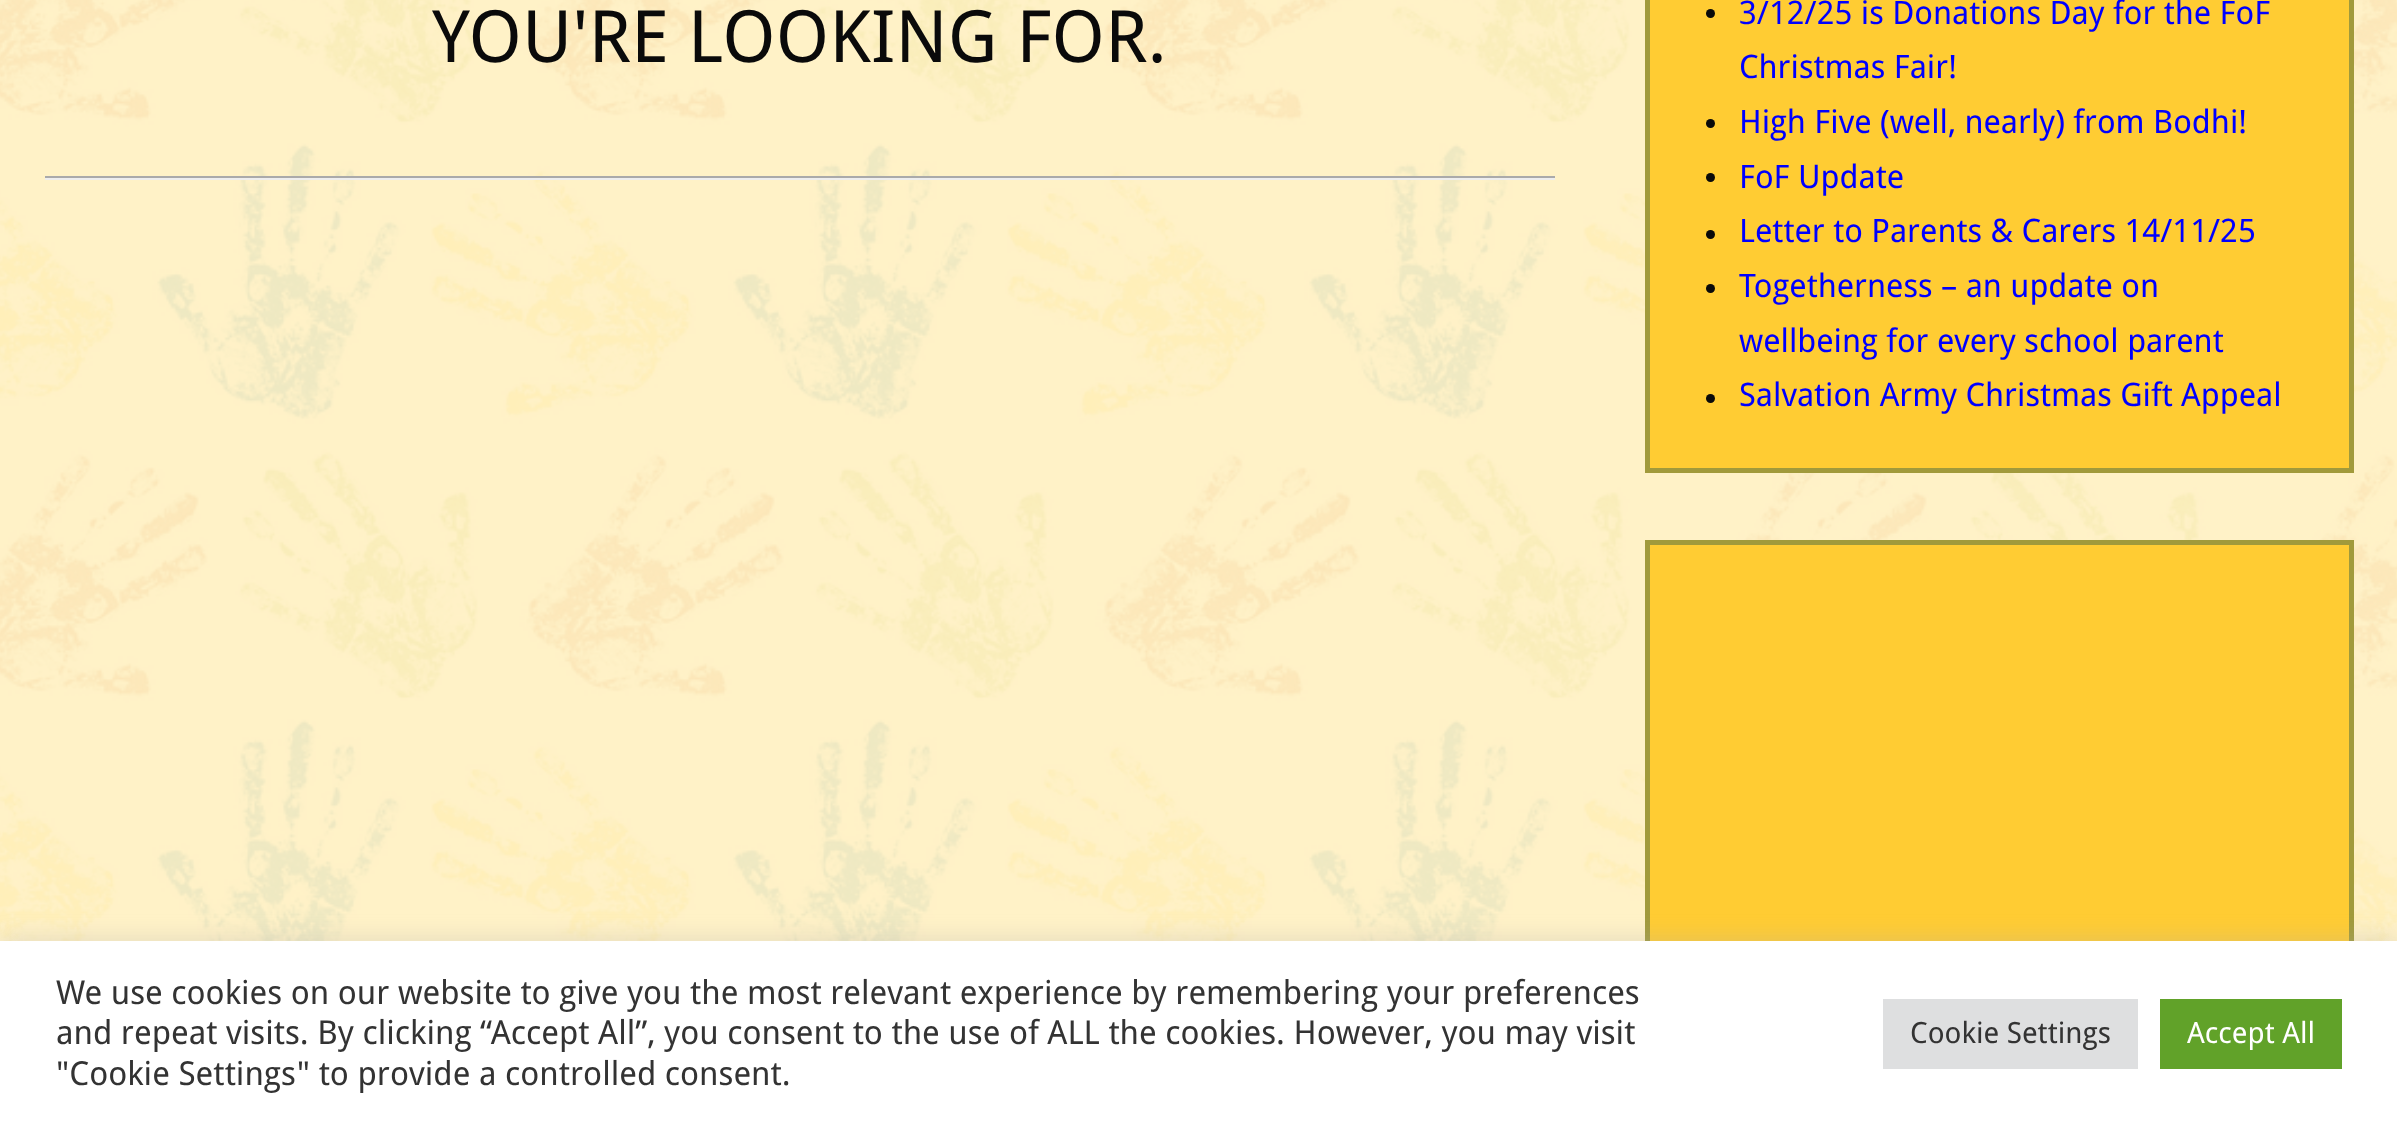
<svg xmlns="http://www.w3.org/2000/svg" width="2397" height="1124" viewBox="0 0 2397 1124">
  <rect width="100%" height="100%" fill="#fff"/>
  <image x="0" y="0" width="2397" height="941" href="img/1.png"/>
  <path d="M45 178V180H1555V-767V178Z" fill="#eee"/>
  <path d="M45 176h1510v2H45z" fill="#aaa"/>
  <path d="M1647.5 -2.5h704v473H1647.5z" fill="#fc3" stroke="#a19a3b" stroke-width="5"/>
  <circle cx="1710.5" cy="13.5" r="4.5" fill="#0a0a0a"/>
  <circle cx="1710.5" cy="123.5" r="4.5" fill="#0a0a0a"/>
  <circle cx="1710.5" cy="177.5" r="4.5" fill="#0a0a0a"/>
  <circle cx="1710.5" cy="234.5" r="4.5" fill="#0a0a0a"/>
  <circle cx="1710.5" cy="288.5" r="4.5" fill="#0a0a0a"/>
  <circle cx="1710.5" cy="398.5" r="4.5" fill="#0a0a0a"/>
  <path d="M1650 545h699v396H1650z" fill="#fc3"/>
  <path d="M1647.5 542.5h704v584H1647.5z" fill="none" stroke="#a19a3b" stroke-width="5"/>
  <path d="M0 938h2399v185H0z" fill="#acabab4d" filter="blur(11px)"/>
  <path d="M0 941h2397v183H0z" fill="#fff"/>
  <path d="M1883 999h255v70H1883z" fill="#dedfe0"/>
  <path d="M2160 999h182v70H2160z" fill="#61a229"/>
  <text x="432" y="62" font-family="Droid Sans" font-size="72" fill="#0a0a0a">YOU'RE LOOKING FOR.</text>
  <g font-family="Droid Sans" font-size="32.4" fill="#00f">
    <text x="1739" y="24">3/12/25 is Donations Day for the FoF</text>
    <text x="1739" y="78">Christmas Fair!</text>
    <text x="1739" y="133">High Five (well, nearly) from Bodhi!</text>
    <text x="1739" y="188">FoF Update</text>
    <text x="1739" y="242">Letter to Parents &amp; Carers 14/11/25</text>
    <text x="1739" y="297">Togetherness – an update on</text>
    <text x="1739" y="352">wellbeing for every school parent</text>
    <text x="1739" y="406">Salvation Army Christmas Gift Appeal</text>
  </g>
  <g font-family="Droid Sans" font-size="33" fill="#333">
    <text x="56" y="1004">We use cookies on our website to give you the most relevant experience by remembering your preferences</text>
    <text x="56" y="1044">and repeat visits. By clicking “Accept All”, you consent to the use of ALL the cookies. However, you may visit</text>
    <text x="56" y="1085">"Cookie Settings" to provide a controlled consent.</text>
  </g>
  <text x="1910" y="1043" font-family="Droid Sans" font-size="29.25" fill="#333">Cookie Settings</text>
  <text x="2187" y="1043" font-family="Droid Sans" font-size="29.25" fill="#fff">Accept All</text>
</svg>
